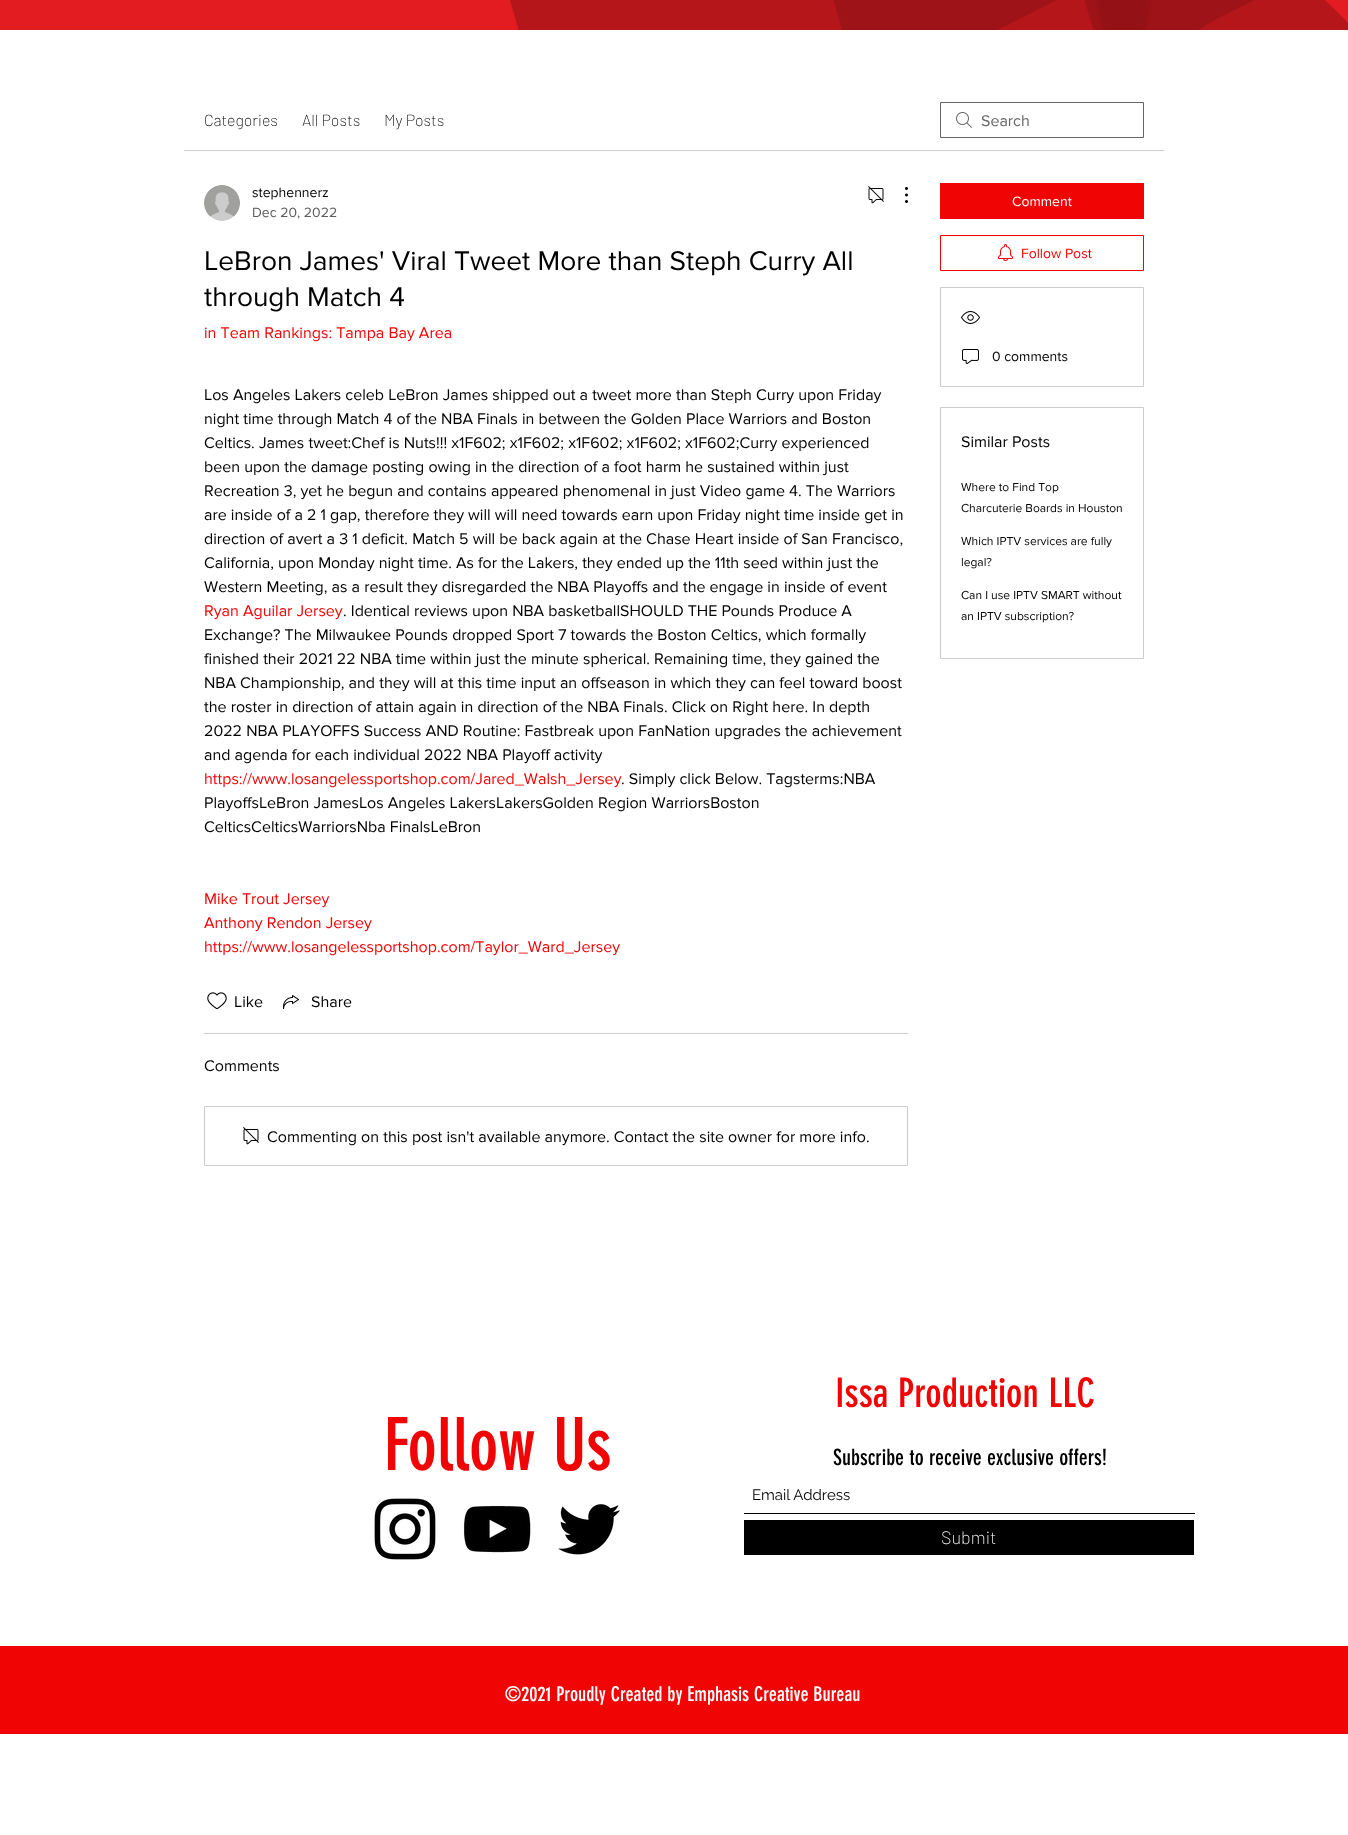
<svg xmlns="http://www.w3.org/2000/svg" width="1348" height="1835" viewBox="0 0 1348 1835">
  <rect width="100%" height="100%" fill="#fff"/>
  <path d="M0 0h1348v30H0z" fill="#e21c21"/>
  <image x="509" y="0" width="839" height="30" href="img/1.png"/>
  <path d="M184 150h980v1H184z" fill="#ccc"/>
  <image x="956" y="112" width="16" height="16" href="img/2.png"/>
  <path d="M940.5 102.5h203v35H940.5z" fill="none" stroke="#666"/>
  <image x="204" y="185" width="36" height="36" href="img/3.png"/>
  <image x="868" y="186" width="16" height="18" href="img/4.png"/>
  <image x="905" y="187" width="3" height="16" href="img/5.png"/>
  <image x="207" y="992" width="20" height="18" href="img/6.png"/>
  <image x="283" y="995" width="16" height="14" href="img/7.png"/>
  <path d="M204 1033h704v1H204z" fill="#ccc"/>
  <path d="M204.5 1106.5h703v59H204.5z" fill="none" stroke="#ccc"/>
  <image x="243" y="1127" width="16" height="18" href="img/8.png"/>
  <path d="M940 183h204v36H940z" fill="#f10404"/>
  <path d="M940.5 235.5h203v35H940.5z" fill="none" stroke="#f10404"/>
  <image x="998" y="244" width="15" height="17" href="img/9.png"/>
  <path d="M940.5 287.5h203v99H940.5z" fill="none" stroke="#ccc"/>
  <image x="961" y="311" width="19" height="13" href="img/10.png"/>
  <image x="962" y="349" width="17" height="15" href="img/11.png"/>
  <path d="M940.5 407.5h203v251H940.5z" fill="none" stroke="#ccc"/>
  <path d="M744 1513h451v1H744z" fill="#000"/>
  <path d="M744 1520h450v35H744z" fill="#000"/>
  <image x="374" y="1498" width="62" height="62" href="img/12.png"/>
  <image x="463" y="1505" width="68" height="48" href="img/13.png"/>
  <image x="558" y="1504" width="62" height="51" href="img/14.png"/>
  <path d="M0 1646h1348v88H0z" fill="#f10404"/>
  <g font-family="Barlow" font-size="16" font-weight="200" fill="#000">
    <text x="204" y="126">Categories</text>
    <text x="302" y="126">All Posts</text>
    <text x="384" y="126">My Posts</text>
  </g>
  <text x="981" y="126" font-family="'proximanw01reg'" font-size="16" fill="#666">Search</text>
  <text x="252" y="197" font-family="'proximanw01reg'" font-size="14" fill="#000">stephennerz</text>
  <text x="252" y="217" font-family="'proximanw01reg'" font-size="14" fill="#5c5c5c">Dec 20, 2022</text>
  <g font-family="'proximanw01reg'" font-size="28" fill="#000">
    <text x="204" y="270">LeBron James' Viral Tweet More than Steph Curry All</text>
    <text x="204" y="306">through Match 4</text>
  </g>
  <text x="204" y="338" font-family="'proximanw01reg'" font-size="16" fill="#f10404">in Team Rankings: Tampa Bay Area</text>
  <g font-family="'proximanw01reg'" font-size="16" fill="#000">
    <text x="204" y="400">Los Angeles Lakers celeb LeBron James shipped out a tweet more than Steph Curry upon Friday</text>
    <text x="204" y="424">night time through Match 4 of the NBA Finals in between the Golden Place Warriors and Boston</text>
    <text x="204" y="448">Celtics. James tweet:Chef is Nuts!!! x1F602; x1F602; x1F602; x1F602; x1F602;Curry experienced</text>
    <text x="204" y="472">been upon the damage posting owing in the direction of a foot harm he sustained within just</text>
    <text x="204" y="496">Recreation 3, yet he begun and contains appeared phenomenal in just Video game 4. The Warriors</text>
    <text x="204" y="520">are inside of a 2 1 gap, therefore they will will need towards earn upon Friday night time inside get in</text>
    <text x="204" y="544">direction of avert a 3 1 deficit. Match 5 will be back again at the Chase Heart inside of San Francisco,</text>
    <text x="204" y="568">California, upon Monday night time. As for the Lakers, they ended up the 11th seed within just the</text>
    <text x="204" y="592">Western Meeting, as a result they disregarded the NBA Playoffs and the engage in inside of event</text>
  </g>
  <text x="204" y="616" font-family="'proximanw01reg'" font-size="16" fill="#f10404">Ryan Aguilar Jersey</text>
  <g font-family="'proximanw01reg'" font-size="16" fill="#000">
    <text x="343" y="616">. Identical reviews upon NBA basketballSHOULD THE Pounds Produce A</text>
    <text x="204" y="640">Exchange? The Milwaukee Pounds dropped Sport 7 towards the Boston Celtics, which formally</text>
    <text x="204" y="664">finished their 2021 22 NBA time within just the minute spherical. Remaining time, they gained the</text>
    <text x="204" y="688">NBA Championship, and they will at this time input an offseason in which they can feel toward boost</text>
    <text x="204" y="712">the roster in direction of attain again in direction of the NBA Finals. Click on Right here. In depth</text>
    <text x="204" y="736">2022 NBA PLAYOFFS Success AND Routine: Fastbreak upon FanNation upgrades the achievement</text>
    <text x="204" y="760">and agenda for each individual 2022 NBA Playoff activity</text>
  </g>
  <text x="204" y="784" font-family="'proximanw01reg'" font-size="16" fill="#f10404">https://www.losangelessportshop.com/Jared_Walsh_Jersey</text>
  <g font-family="'proximanw01reg'" font-size="16" fill="#000">
    <text x="621" y="784">. Simply click Below. Tagsterms:NBA</text>
    <text x="204" y="808">PlayoffsLeBron JamesLos Angeles LakersLakersGolden Region WarriorsBoston</text>
    <text x="204" y="832">CelticsCelticsWarriorsNba FinalsLeBron</text>
  </g>
  <g font-family="'proximanw01reg'" font-size="16" fill="#f10404">
    <text x="204" y="904">Mike Trout Jersey</text>
    <text x="204" y="928">Anthony Rendon Jersey</text>
    <text x="204" y="952">https://www.losangelessportshop.com/Taylor_Ward_Jersey</text>
  </g>
  <g font-family="'proximanw01reg'" font-size="16" fill="#000">
    <text x="234" y="1007">Like</text>
    <text x="311" y="1007">Share</text>
    <text x="204" y="1071">Comments</text>
    <text x="267" y="1142">Commenting on this post isn't available anymore. Contact the site owner for more info.</text>
  </g>
  <text x="1012" y="206" font-family="'proximanw01reg'" font-size="14" fill="#fff">Comment</text>
  <text x="1021" y="258" font-family="'proximanw01reg'" font-size="14" fill="#f10404">Follow Post</text>
  <text x="992" y="361" font-family="'proximanw01reg'" font-size="14" fill="#000">0 comments</text>
  <text x="961" y="447" font-family="'proximanw01reg'" font-size="16" fill="#000">Similar Posts</text>
  <g font-family="'proximanw01reg'" font-size="12" fill="#000">
    <text x="961" y="491">Where to Find Top</text>
    <text x="961" y="512">Charcuterie Boards in Houston</text>
    <text x="961" y="545">Which IPTV services are fully</text>
    <text x="961" y="566">legal?</text>
    <text x="961" y="599">Can I use IPTV SMART without</text>
    <text x="961" y="620">an IPTV subscription?</text>
  </g>
  <text x="835" y="1407" font-family="'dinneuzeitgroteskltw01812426'" font-size="40" fill="#f10404">Issa Production LLC</text>
  <text x="384" y="1470" font-family="'dinneuzeitgroteskltw01812426'" font-size="72" fill="#f10404">Follow Us</text>
  <text x="833" y="1465" font-family="'dinneuzeitgroteskltw01812426'" font-size="22" fill="#000">Subscribe to receive exclusive offers!</text>
  <text x="752" y="1500" font-family="Raleway" font-size="15" fill="#000">Email Address</text>
  <text x="941" y="1544" font-family="Barlow" font-size="18" font-weight="200" fill="#fff">Submit</text>
  <text x="505" y="1701" font-family="'dinneuzeitgroteskltw01812426'" font-size="20" fill="#fff">©2021 Proudly Created by Emphasis Creative Bureau</text>
</svg>
